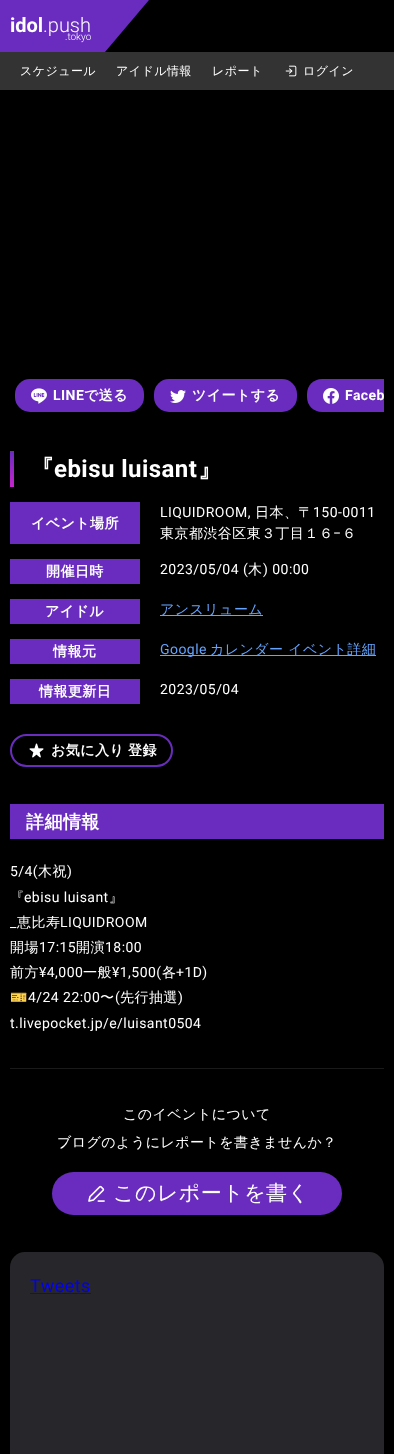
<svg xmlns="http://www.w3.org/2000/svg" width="394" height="1454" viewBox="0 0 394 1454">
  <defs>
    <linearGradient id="g1" gradientUnits="userSpaceOnUse" x1="12" y1="451" x2="12" y2="487"><stop offset="0" stop-color="#692cbf"/><stop offset="1" stop-color="#c625cc"/></linearGradient>
  </defs>
  <rect width="100%" height="100%" fill="#000"/>
  <path d="M0 0h105v52H0z" fill="#692cbf"/>
  <path d="M105 0H149L105 52Z" fill="#692cbf"/>
  <path d="M0 52h394v38H0z" fill="#333"/>
  <image x="285" y="65" width="12" height="12" href="img/1.png"/>
  <rect x="15" y="379" width="129" height="33" rx="15" fill="#692cbf"/>
  <image x="31" y="388" width="16" height="16" href="img/2.png"/>
  <rect x="154" y="379" width="143" height="33" rx="15" fill="#692cbf"/>
  <image x="170" y="390" width="16" height="13" href="img/3.png"/>
  <path d="M322 379H384V412H322C313.5 412 307 405.5 307 397V394C307 385.5 313.5 379 322 379Z" fill="#692cbf"/>
  <image x="323" y="388" width="16" height="16" href="img/4.png"/>
  <path d="M10 451h4v36H10z" fill="url(#g1)"/>
  <path d="M10 502h130v42H10z" fill="#692cbf"/>
  <path d="M10 559h130v25H10z" fill="#692cbf"/>
  <path d="M10 599h130v25H10z" fill="#692cbf"/>
  <path d="M160 615h103v1H160z" fill="#64a4fe"/>
  <path d="M10 639h130v25H10z" fill="#692cbf"/>
  <path d="M160 655h216v1H160z" fill="#64a4fe"/>
  <path d="M10 679h130v25H10z" fill="#692cbf"/>
  <rect x="11" y="735" width="161" height="31" rx="15.5" fill="none" stroke="#692cbf" stroke-width="2"/>
  <image x="29" y="743" width="15" height="15" href="img/5.png"/>
  <path d="M10 804h374v35H10z" fill="#692cbf"/>
  <path d="M10 1068h374v1H10z" fill="#1a1a1a"/>
  <rect x="52" y="1172" width="290" height="43" rx="21.5" fill="#692cbf"/>
  <image x="88" y="1185" width="17" height="17" href="img/6.png"/>
  <rect x="10" y="1252" width="374" height="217" rx="15" fill="#27262b"/>
  <path d="M30 1293h61v1H30z" fill="#00e"/>
  <text x="10" y="32" font-family="Roboto" font-size="20" font-weight="bold" fill="#fff">idol</text>
  <text x="43" y="32" font-family="Roboto" font-size="20" font-weight="300" fill="#fff">.push</text>
  <text x="65" y="40" font-family="Roboto" font-size="10" font-weight="300" fill="#fff">.tokyo</text>
  <g font-family="WenQuanYi Zen Hei" font-size="12" font-weight="500" letter-spacing="0.45" fill="#fff">
    <text x="20" y="75">スケジュール</text>
    <text x="116" y="75">アイドル情報</text>
    <text x="212" y="75">レポート</text>
    <text x="303" y="75">ログイン</text>
  </g>
  <text x="53" y="400" font-family="Roboto" font-size="14" font-weight="bold" letter-spacing="0.45" fill="#fff">LINE</text>
  <g font-family="WenQuanYi Zen Hei" font-size="14" font-weight="bold" letter-spacing="0.45" fill="#fff">
    <text x="84" y="400">で送る</text>
    <text x="192" y="400">ツイートする</text>
  </g>
  <text x="345" y="400" font-family="Roboto" font-size="14" font-weight="bold" letter-spacing="0.45" fill="#fff">Faceb</text>
  <text x="30" y="477" font-family="WenQuanYi Zen Hei" font-size="24" font-weight="bold" letter-spacing="0.45" fill="#fff">『</text>
  <text x="54" y="477" font-family="Roboto" font-size="24" font-weight="bold" letter-spacing="0.45" fill="#fff">ebisu luisant</text>
  <text x="198" y="477" font-family="WenQuanYi Zen Hei" font-size="24" font-weight="bold" letter-spacing="0.45" fill="#fff">』</text>
  <text x="31" y="528" font-family="WenQuanYi Zen Hei" font-size="14" font-weight="bold" letter-spacing="0.45" fill="#fff">イベント場所</text>
  <text x="160" y="517" font-family="Roboto" font-size="14" letter-spacing="0.45" fill="#fff">LIQUIDROOM,</text>
  <text x="255" y="517" font-family="WenQuanYi Zen Hei" font-size="14" font-weight="500" letter-spacing="0.45" fill="#fff">日本、〒</text>
  <text x="313" y="517" font-family="Roboto" font-size="14" letter-spacing="0.45" fill="#fff">150-0011</text>
  <text x="160" y="538" font-family="WenQuanYi Zen Hei" font-size="14" font-weight="500" letter-spacing="0.45" fill="#fff">東京都渋谷区東３丁目１６</text>
  <text x="333" y="538" font-family="Roboto" font-size="14" letter-spacing="0.45" fill="#fff">−</text>
  <text x="342" y="538" font-family="WenQuanYi Zen Hei" font-size="14" font-weight="500" letter-spacing="0.45" fill="#fff">６</text>
  <text x="46" y="576" font-family="WenQuanYi Zen Hei" font-size="14" font-weight="bold" letter-spacing="0.45" fill="#fff">開催日時</text>
  <text x="160" y="574" font-family="Roboto" font-size="14" letter-spacing="0.45" fill="#fff">2023/05/04 (</text>
  <text x="248" y="574" font-family="WenQuanYi Zen Hei" font-size="14" font-weight="500" letter-spacing="0.45" fill="#fff">木</text>
  <text x="263" y="574" font-family="Roboto" font-size="14" letter-spacing="0.45" fill="#fff">) 00:00</text>
  <text x="45" y="616" font-family="WenQuanYi Zen Hei" font-size="14" font-weight="bold" letter-spacing="0.45" fill="#fff">アイドル</text>
  <text x="160" y="614" font-family="WenQuanYi Zen Hei" font-size="14" font-weight="500" letter-spacing="0.45" fill="#64a4fe">アンスリューム</text>
  <text x="53" y="656" font-family="WenQuanYi Zen Hei" font-size="14" font-weight="bold" letter-spacing="0.45" fill="#fff">情報元</text>
  <text x="160" y="654" font-family="Roboto" font-size="14" letter-spacing="0.45" fill="#64a4fe">Google</text>
  <text x="210" y="654" font-family="WenQuanYi Zen Hei" font-size="14" font-weight="500" letter-spacing="0.45" fill="#64a4fe">カレンダー イベント詳細</text>
  <text x="39" y="696" font-family="WenQuanYi Zen Hei" font-size="14" font-weight="bold" letter-spacing="0.45" fill="#fff">情報更新日</text>
  <text x="160" y="694" font-family="Roboto" font-size="14" letter-spacing="0.45" fill="#fff">2023/05/04</text>
  <g font-family="WenQuanYi Zen Hei" font-size="14" font-weight="bold" letter-spacing="0.45" fill="#fff">
    <text x="51" y="755">お気に入り</text>
    <text x="128" y="755">登録</text>
  </g>
  <text x="26" y="828" font-family="WenQuanYi Zen Hei" font-size="18" font-weight="bold" letter-spacing="0.45" fill="#fff">詳細情報</text>
  <text x="10" y="876" font-family="Roboto" font-size="14" letter-spacing="0.45" fill="#fff">5/4(</text>
  <text x="38" y="876" font-family="WenQuanYi Zen Hei" font-size="14" font-weight="500" letter-spacing="0.45" fill="#fff">木祝</text>
  <text x="67" y="876" font-family="Roboto" font-size="14" letter-spacing="0.45" fill="#fff">)</text>
  <text x="10" y="902" font-family="WenQuanYi Zen Hei" font-size="14" font-weight="500" letter-spacing="0.45" fill="#fff">『</text>
  <text x="24" y="902" font-family="Roboto" font-size="14" letter-spacing="0.45" fill="#fff">ebisu luisant</text>
  <text x="109" y="902" font-family="WenQuanYi Zen Hei" font-size="14" font-weight="500" letter-spacing="0.45" fill="#fff">』</text>
  <text x="10" y="927" font-family="Roboto" font-size="14" letter-spacing="0.45" fill="#fff">_</text>
  <text x="17" y="927" font-family="WenQuanYi Zen Hei" font-size="14" font-weight="500" letter-spacing="0.45" fill="#fff">恵比寿</text>
  <text x="60" y="927" font-family="Roboto" font-size="14" letter-spacing="0.45" fill="#fff">LIQUIDROOM</text>
  <text x="10" y="952" font-family="WenQuanYi Zen Hei" font-size="14" font-weight="500" letter-spacing="0.45" fill="#fff">開場</text>
  <text x="39" y="952" font-family="Roboto" font-size="14" letter-spacing="0.45" fill="#fff">17:15</text>
  <text x="76" y="952" font-family="WenQuanYi Zen Hei" font-size="14" font-weight="500" letter-spacing="0.45" fill="#fff">開演</text>
  <text x="105" y="952" font-family="Roboto" font-size="14" letter-spacing="0.45" fill="#fff">18:00</text>
  <text x="10" y="977" font-family="WenQuanYi Zen Hei" font-size="14" font-weight="500" letter-spacing="0.45" fill="#fff">前方</text>
  <text x="39" y="977" font-family="Roboto" font-size="14" letter-spacing="0.45" fill="#fff">¥4,000</text>
  <text x="83" y="977" font-family="WenQuanYi Zen Hei" font-size="14" font-weight="500" letter-spacing="0.45" fill="#fff">一般</text>
  <text x="112" y="977" font-family="Roboto" font-size="14" letter-spacing="0.45" fill="#fff">¥1,500(</text>
  <text x="162" y="977" font-family="WenQuanYi Zen Hei" font-size="14" font-weight="500" letter-spacing="0.45" fill="#fff">各</text>
  <text x="176" y="977" font-family="Roboto" font-size="14" letter-spacing="0.45" fill="#fff">+1D)</text>
  <text x="10" y="1002" font-family="Noto Color Emoji" font-size="14" letter-spacing="0.45" fill="#fff">🎫</text>
  <text x="28" y="1002" font-family="Roboto" font-size="14" letter-spacing="0.45" fill="#fff">4/24 22:00</text>
  <text x="100" y="1002" font-family="WenQuanYi Zen Hei" font-size="14" font-weight="500" letter-spacing="0.45" fill="#fff">〜</text>
  <text x="115" y="1002" font-family="Roboto" font-size="14" letter-spacing="0.45" fill="#fff">(</text>
  <text x="120" y="1002" font-family="WenQuanYi Zen Hei" font-size="14" font-weight="500" letter-spacing="0.45" fill="#fff">先行抽選</text>
  <g font-family="Roboto" font-size="14" letter-spacing="0.45" fill="#fff">
    <text x="178" y="1002">)</text>
    <text x="10" y="1028">t.livepocket.jp/e/luisant0504</text>
  </g>
  <g font-family="WenQuanYi Zen Hei" font-size="14" font-weight="500" letter-spacing="0.45" fill="#fff">
    <text x="123" y="1119">このイベントについて</text>
    <text x="57" y="1147">ブログのようにレポートを書きませんか？</text>
  </g>
  <text x="113" y="1200" font-family="WenQuanYi Zen Hei" font-size="21" font-weight="500" letter-spacing="0.45" fill="#fff">このレポートを書く</text>
  <text x="30" y="1292" font-family="Roboto" font-size="18" letter-spacing="0.45" fill="#00e">Tweets</text>
</svg>
